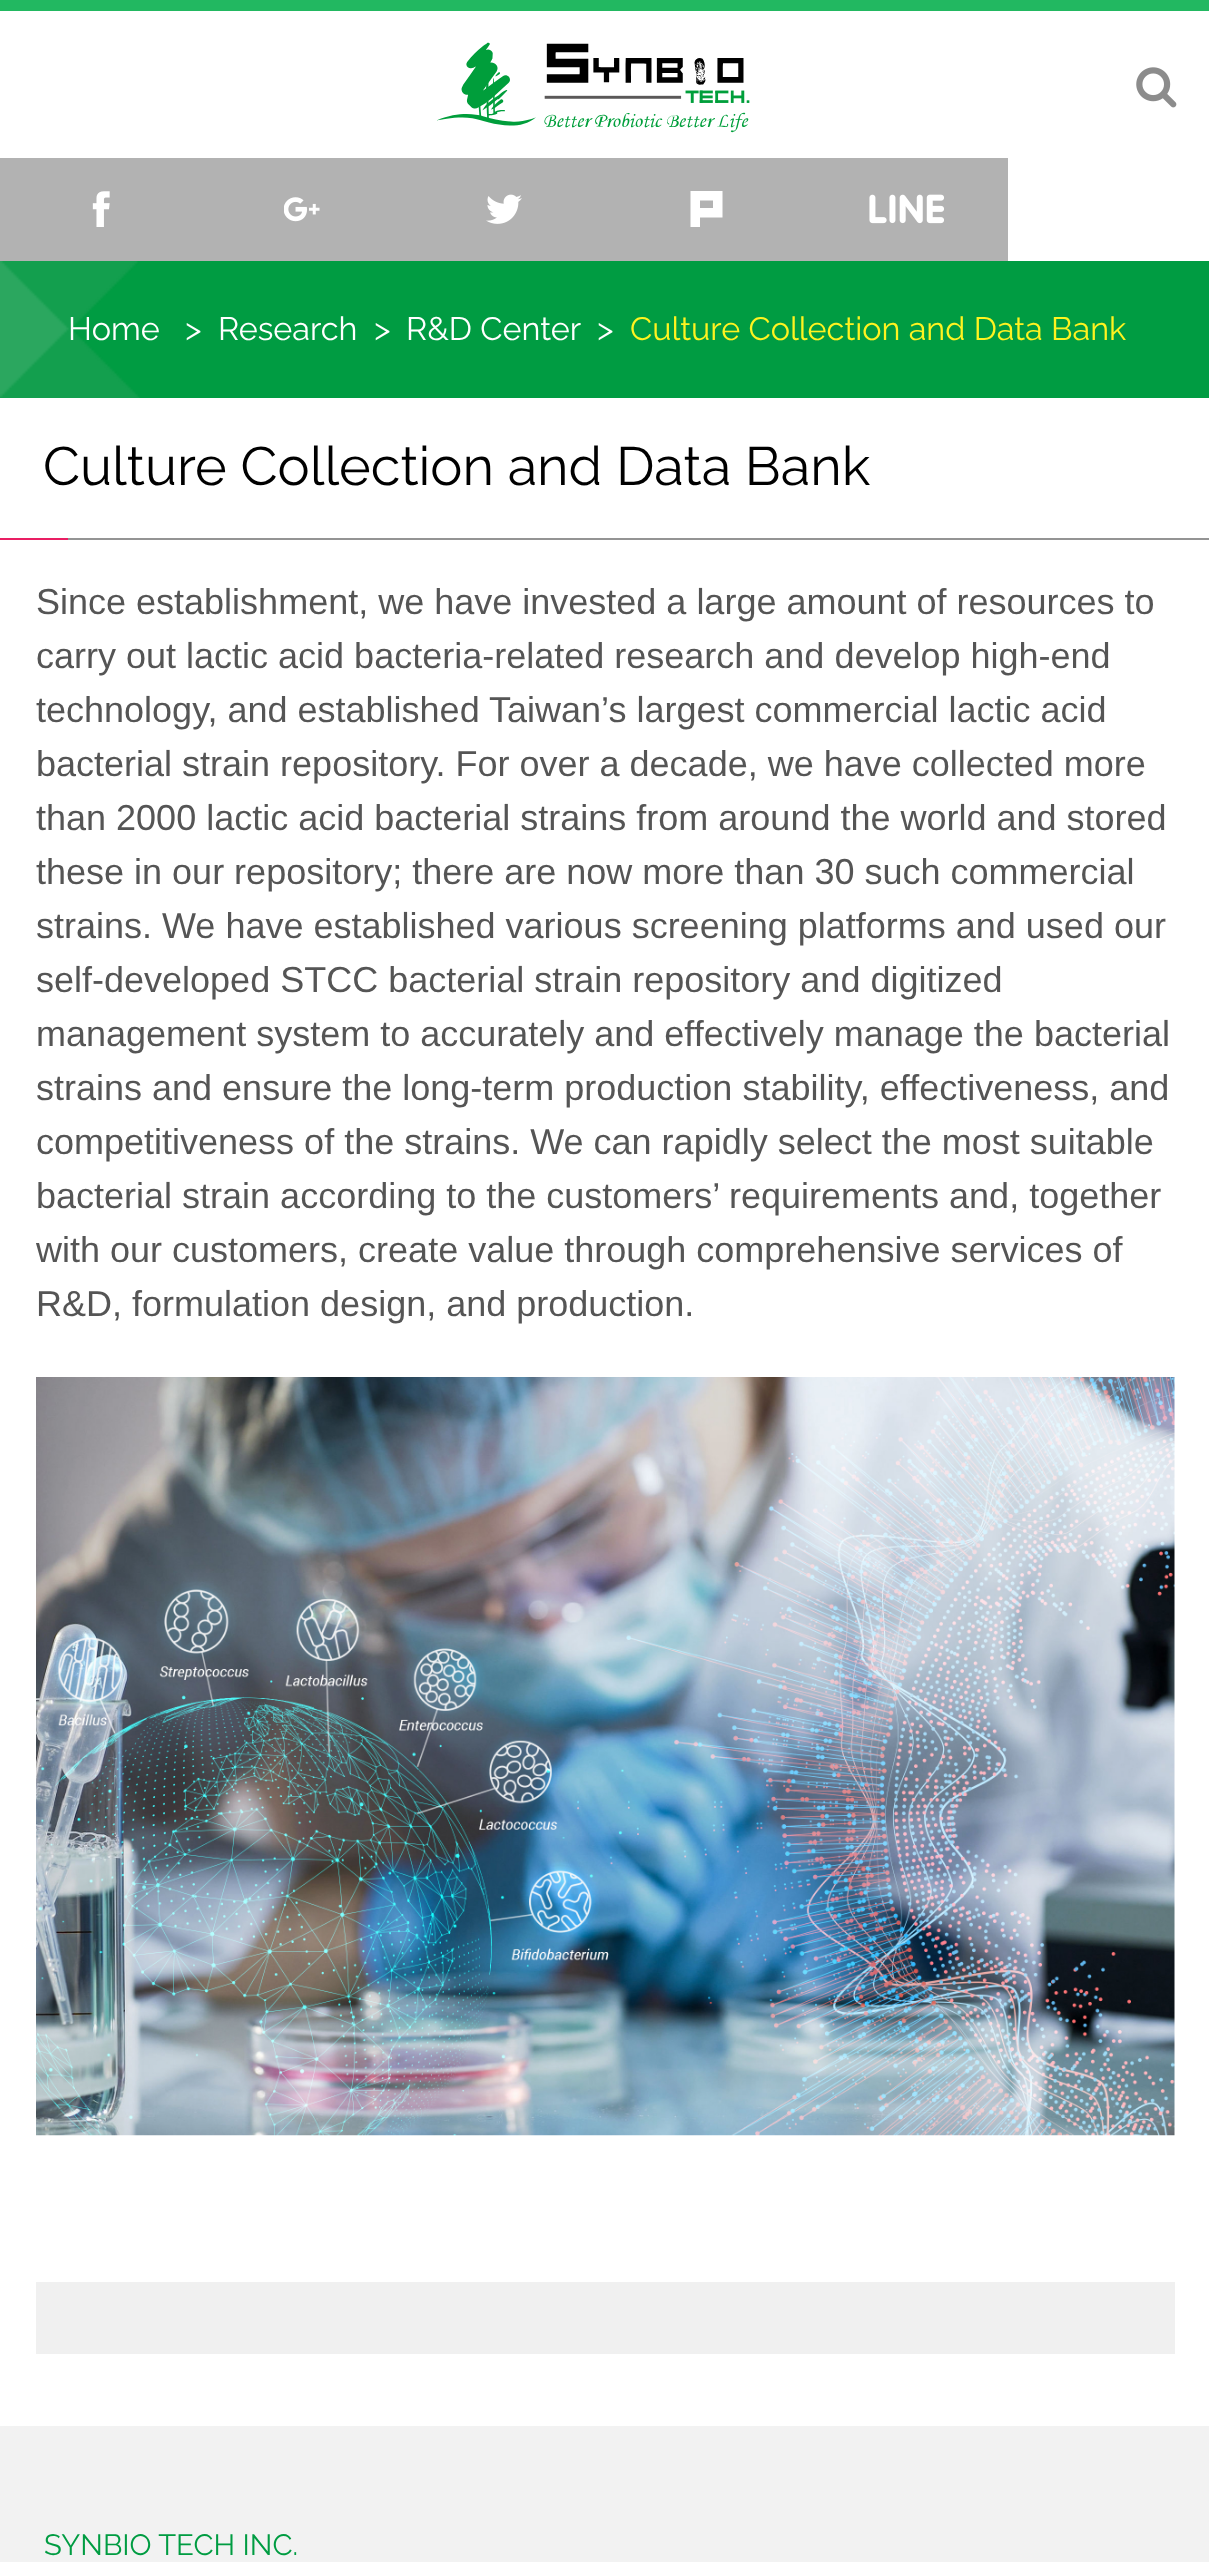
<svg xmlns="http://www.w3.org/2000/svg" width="1209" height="2562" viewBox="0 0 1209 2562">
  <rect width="100%" height="100%" fill="#fff"/>
  <path d="M0 0h1209v11H0z" fill="#22b861"/>
  <image x="437" y="42" width="313" height="91" href="img/1.png"/>
  <image x="1136" y="67" width="41" height="41" href="img/2.png"/>
  <path d="M0 158h1008v103H0z" fill="#b2b2b2"/>
  <image x="92" y="191" width="18" height="36" href="img/3.png"/>
  <image x="284" y="197" width="36" height="25" href="img/4.png"/>
  <image x="486" y="194" width="36" height="30" href="img/5.png"/>
  <path d="M713 191H690.5V227H700V217.5H722.5V191ZM713 208H700V200.5H713Z" fill="#fff"/>
  <image x="869" y="194" width="75" height="30" href="img/6.png"/>
  <path d="M0 261h1209v137H0z" fill="#009c42"/>
  <image x="0" y="261" width="140" height="137" href="img/7.png"/>
  <path d="M68 538h1141v2H68z" fill="#949494"/>
  <path d="M0 538h68v2H0z" fill="#e91e63"/>
  <image x="36" y="1377" width="1139" height="759" href="img/8.png"/>
  <path d="M36 2282h1139v72H36z" fill="#f0f0f0"/>
  <path d="M0 2426h1209v136H0z" fill="#f2f2f2"/>
  <g font-family="Raleway" font-size="32.4" font-weight="100" fill="#fff">
    <text x="68" y="340">Home</text>
    <text x="185" y="340">&gt;</text>
    <text x="218" y="340">Research</text>
    <text x="374" y="340">&gt;</text>
    <text x="406" y="340">R&amp;D Center</text>
    <text x="597" y="340">&gt;</text>
  </g>
  <text x="630" y="340" font-family="Raleway" font-size="32.4" font-weight="100" fill="#fff320">Culture Collection and Data Bank</text>
  <text x="43" y="485" font-family="Raleway" font-size="54" font-weight="100" fill="#000">Culture Collection and Data Bank</text>
  <g font-family="Liberation Sans" font-size="36" fill="#555">
    <text x="36" y="614">Since establishment, we have invested a large amount of resources to</text>
    <text x="36" y="668">carry out lactic acid bacteria-related research and develop high-end</text>
    <text x="36" y="722">technology, and established Taiwan’s largest commercial lactic acid</text>
    <text x="36" y="776">bacterial strain repository. For over a decade, we have collected more</text>
    <text x="36" y="830">than 2000 lactic acid bacterial strains from around the world and stored</text>
    <text x="36" y="884">these in our repository; there are now more than 30 such commercial</text>
    <text x="36" y="938">strains. We have established various screening platforms and used our</text>
    <text x="36" y="992">self-developed STCC bacterial strain repository and digitized</text>
    <text x="36" y="1046">management system to accurately and effectively manage the bacterial</text>
    <text x="36" y="1100">strains and ensure the long-term production stability, effectiveness, and</text>
    <text x="36" y="1154">competitiveness of the strains. We can rapidly select the most suitable</text>
    <text x="36" y="1208">bacterial strain according to the customers’ requirements and, together</text>
    <text x="36" y="1262">with our customers, create value through comprehensive services of</text>
    <text x="36" y="1316">R&amp;D, formulation design, and production.</text>
  </g>
  <text x="44" y="2555" font-family="Raleway" font-size="29.25" font-weight="100" fill="#009c42">SYNBIO TECH INC.</text>
</svg>
